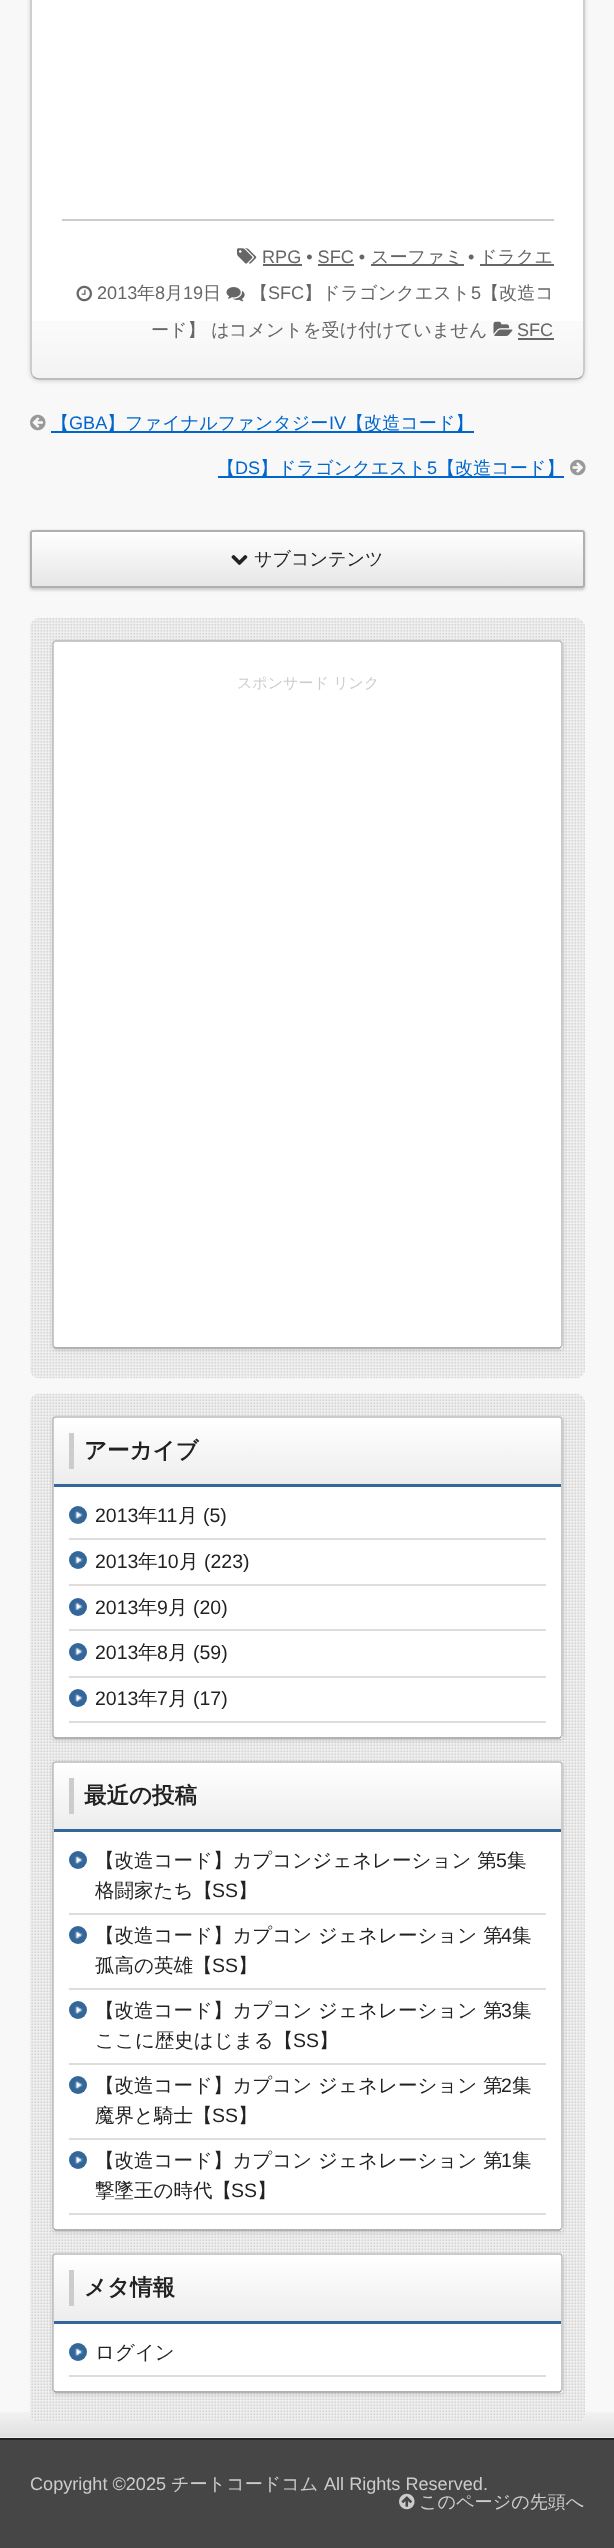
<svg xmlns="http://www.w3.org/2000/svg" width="614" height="2548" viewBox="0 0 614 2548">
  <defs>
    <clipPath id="clip1"><rect x="30" y="530" width="555" height="58" rx="3"/></clipPath>
    <linearGradient id="g1" gradientUnits="userSpaceOnUse" x1="308" y1="531" x2="308" y2="587"><stop offset="0" stop-color="#fff"/><stop offset="1" stop-color="#e6e6e6"/></linearGradient>
    <linearGradient id="g2" gradientUnits="userSpaceOnUse" x1="308" y1="1418" x2="308" y2="1484"><stop offset="0" stop-color="#fff"/><stop offset="1" stop-color="#ededed"/></linearGradient>
    <linearGradient id="g3" gradientUnits="userSpaceOnUse" x1="308" y1="1763" x2="308" y2="1829"><stop offset="0" stop-color="#fff"/><stop offset="1" stop-color="#ededed"/></linearGradient>
    <linearGradient id="g4" gradientUnits="userSpaceOnUse" x1="308" y1="2255" x2="308" y2="2321"><stop offset="0" stop-color="#fff"/><stop offset="1" stop-color="#ededed"/></linearGradient>
  </defs>
  <rect width="100%" height="100%" fill="#f8f8f8"/>
  <image x="0" y="2412" width="614" height="26" href="img/1.png"/>
  <rect x="30" y="-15" width="555" height="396" rx="9" fill="#00000026" filter="blur(2px)"/>
  <rect x="30" y="-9" width="555" height="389" rx="9" fill="#fff"/>
  <image x="30" y="321" width="555" height="57" href="img/2.png"/>
  <path d="M582-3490.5C583.5-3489 584-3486.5 584-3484.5V370.5C584 372.5 583.5 375 582 376.5" fill="none" stroke="#bfbfbf" stroke-width="1.5"/>
  <path d="M582 376.5C580.5 378 578 379 576 379H39C37 379 34.5 378 33 376.5" fill="none" stroke="#a6a6a6" stroke-width="1.5"/>
  <path d="M33 376.5C31.5 375 31 372.5 31 370.5V-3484.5C31-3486.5 31.5-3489 33-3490.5" fill="none" stroke="#bfbfbf" stroke-width="1.5"/>
  <path d="M62 219h492v2H62z" fill="#ccc"/>
  <image x="237" y="248" width="20" height="16" href="img/3.png"/>
  <path d="M263 264h39v2H263z" fill="#666"/>
  <path d="M371 264h93v2H371z" fill="#666"/>
  <path d="M480 264h74v2H480z" fill="#666"/>
  <path d="M318 264h36v2H318z" fill="#666"/>
  <image x="76" y="285" width="16" height="17" href="img/4.png"/>
  <image x="226" y="287" width="19" height="15" href="img/5.png"/>
  <image x="493" y="321" width="20" height="15" href="img/6.png"/>
  <path d="M518 338h36v2H518z" fill="#666"/>
  <image x="30" y="414" width="16" height="17" href="img/7.png"/>
  <path d="M51 431h423v2H51z" fill="#06c"/>
  <path d="M218 476h346v2H218z" fill="#06c"/>
  <image x="570" y="459" width="16" height="17" href="img/8.png"/>
  <rect x="30" y="531" width="555" height="59" rx="3" fill="#00000033" filter="blur(1.5px)"/>
  <g clip-path="url(#clip1)">
    <path d="M30 531h555v56H30z" fill="url(#g1)"/>
  </g>
  <rect x="31" y="531" width="553" height="56" rx="2" fill="none" stroke="#b0b0b0" stroke-width="2"/>
  <image x="231" y="555" width="17" height="10" href="img/9.png"/>
  <image x="30" y="618" width="555" height="761" href="img/10.png"/>
  <rect x="53" y="642" width="510" height="708" rx="3" fill="#00000026" filter="blur(2px)"/>
  <rect x="53" y="641" width="510" height="708" rx="3" fill="#fff"/>
  <path d="M561 1347L559.5 1348H55.5L54 1347" fill="none" stroke="#999" stroke-width="1.5"/>
  <path d="M54 1347L53 1345.5V643.5L54 642L55.5 641H559.5L561 642L562 643.5V1345.5L561 1347" fill="none" stroke="#bbb" stroke-width="1.5"/>
  <image x="30" y="1393" width="555" height="1029" href="img/11.png"/>
  <rect x="53" y="1418" width="510" height="322" rx="3" fill="#00000026" filter="blur(2px)"/>
  <rect x="53" y="1416" width="510" height="323" rx="3" fill="#fff"/>
  <path d="M561 1737L559.5 1738H55.5L54 1737" fill="none" stroke="#999" stroke-width="1.5"/>
  <path d="M54 1737L53 1735.5V1419L54 1417.5L55.5 1417H559.5L561 1417.5L562 1419V1735.5L561 1737" fill="none" stroke="#bbb" stroke-width="1.5"/>
  <path d="M57 1418H558C559.5 1418 561 1419.5 561 1421V1484H54V1421C54 1419.5 55.5 1418 57 1418Z" fill="url(#g2)"/>
  <path d="M54 1484h507v3H54z" fill="#369"/>
  <path d="M69 1433h5v36H69z" fill="#ccc"/>
  <path d="M69 1538h477v2H69z" fill="#ddd"/>
  <circle cx="78" cy="1515" r="9" fill="#369"/>
  <image x="74" y="1510" width="9" height="10" href="img/12.png"/>
  <path d="M69 1584h477v2H69z" fill="#ddd"/>
  <circle cx="78" cy="1560" r="9" fill="#369"/>
  <image x="74" y="1555" width="9" height="10" href="img/12.png"/>
  <path d="M69 1629h477v2H69z" fill="#ddd"/>
  <circle cx="78" cy="1607" r="9" fill="#369"/>
  <image x="74" y="1602" width="9" height="9" href="img/13.png"/>
  <path d="M69 1676h477v2H69z" fill="#ddd"/>
  <circle cx="78" cy="1652" r="9" fill="#369"/>
  <image x="74" y="1647" width="9" height="9" href="img/13.png"/>
  <path d="M69 1721h477v2H69z" fill="#ddd"/>
  <circle cx="78" cy="1698" r="9" fill="#369"/>
  <image x="74" y="1693" width="9" height="10" href="img/12.png"/>
  <rect x="53" y="1763" width="510" height="469" rx="3" fill="#00000026" filter="blur(2px)"/>
  <rect x="53" y="1761" width="510" height="470" rx="3" fill="#fff"/>
  <path d="M561 2229L559.5 2230H55.5L54 2229" fill="none" stroke="#999" stroke-width="1.5"/>
  <path d="M54 2229L53 2227.5V1764L54 1762.5L55.5 1762H559.5L561 1762.5L562 1764V2227.5L561 2229" fill="none" stroke="#bbb" stroke-width="1.5"/>
  <path d="M57 1763H558C559.5 1763 561 1764.5 561 1766V1829H54V1766C54 1764.5 55.5 1763 57 1763Z" fill="url(#g3)"/>
  <path d="M54 1829h507v3H54z" fill="#369"/>
  <path d="M69 1778h5v36H69z" fill="#ccc"/>
  <path d="M69 1913h477v2H69z" fill="#ddd"/>
  <circle cx="78" cy="1860" r="9" fill="#369"/>
  <image x="74" y="1855" width="9" height="10" href="img/12.png"/>
  <path d="M69 1988h477v2H69z" fill="#ddd"/>
  <circle cx="78" cy="1935" r="9" fill="#369"/>
  <image x="74" y="1930" width="9" height="10" href="img/12.png"/>
  <path d="M69 2063h477v2H69z" fill="#ddd"/>
  <circle cx="78" cy="2010" r="9" fill="#369"/>
  <image x="74" y="2005" width="9" height="10" href="img/12.png"/>
  <path d="M69 2138h477v2H69z" fill="#ddd"/>
  <circle cx="78" cy="2085" r="9" fill="#369"/>
  <image x="74" y="2080" width="9" height="10" href="img/12.png"/>
  <path d="M69 2213h477v2H69z" fill="#ddd"/>
  <circle cx="78" cy="2160" r="9" fill="#369"/>
  <image x="74" y="2155" width="9" height="10" href="img/12.png"/>
  <rect x="53" y="2255" width="510" height="139" rx="3" fill="#00000026" filter="blur(2px)"/>
  <rect x="53" y="2253" width="510" height="140" rx="3" fill="#fff"/>
  <path d="M561 2391L559.5 2392H55.5L54 2391" fill="none" stroke="#999" stroke-width="1.5"/>
  <path d="M54 2391L53 2389.5V2256L54 2254.5L55.5 2254H559.5L561 2254.5L562 2256V2389.5L561 2391" fill="none" stroke="#bbb" stroke-width="1.5"/>
  <path d="M57 2255H558C559.5 2255 561 2256.5 561 2258V2321H54V2258C54 2256.5 55.5 2255 57 2255Z" fill="url(#g4)"/>
  <path d="M54 2321h507v3H54z" fill="#369"/>
  <path d="M69 2270h5v36H69z" fill="#ccc"/>
  <path d="M69 2375h477v2H69z" fill="#ddd"/>
  <circle cx="78" cy="2352" r="9" fill="#369"/>
  <image x="74" y="2347" width="9" height="10" href="img/12.png"/>
  <path d="M0 2440h614v108H0z" fill="#464646"/>
  <path d="M0 2438h614v2H0z" fill="#222"/>
  <text x="262" y="263" font-family="Liberation Sans" font-size="18.1" fill="#666">RPG • SFC •</text>
  <text x="371" y="263" font-family="WenQuanYi Zen Hei" font-size="18.1" font-weight="500" fill="#666">スーファミ</text>
  <text x="468" y="263" font-family="Liberation Sans" font-size="18.1" fill="#666">•</text>
  <text x="479" y="263" font-family="WenQuanYi Zen Hei" font-size="18.1" font-weight="500" fill="#666">ドラクエ</text>
  <text x="97" y="299" font-family="Liberation Sans" font-size="18.1" fill="#666">2013</text>
  <text x="137" y="299" font-family="WenQuanYi Zen Hei" font-size="18.1" font-weight="500" fill="#666">年</text>
  <text x="155" y="299" font-family="Liberation Sans" font-size="18.1" fill="#666">8</text>
  <text x="165" y="299" font-family="WenQuanYi Zen Hei" font-size="18.1" font-weight="500" fill="#666">月</text>
  <text x="183" y="299" font-family="Liberation Sans" font-size="18.1" fill="#666">19</text>
  <g font-family="WenQuanYi Zen Hei" font-size="18.1" font-weight="500" fill="#666">
    <text x="203" y="299">日</text>
    <text x="250" y="299">【</text>
  </g>
  <text x="268" y="299" font-family="Liberation Sans" font-size="18.1" fill="#666">SFC</text>
  <text x="304" y="299" font-family="WenQuanYi Zen Hei" font-size="18.1" font-weight="500" fill="#666">】ドラゴンクエスト</text>
  <text x="471" y="299" font-family="Liberation Sans" font-size="18.1" fill="#666">5</text>
  <g font-family="WenQuanYi Zen Hei" font-size="18.1" font-weight="500" fill="#666">
    <text x="481" y="299">【改造コ</text>
    <text x="151" y="336">ード】 は</text>
    <text x="229" y="336">コメントを受け付けていません</text>
  </g>
  <text x="517" y="336" font-family="Liberation Sans" font-size="18.1" fill="#666">SFC</text>
  <text x="51" y="429" font-family="WenQuanYi Zen Hei" font-size="18.1" font-weight="500" fill="#06c">【</text>
  <text x="69" y="429" font-family="Liberation Sans" font-size="18.1" fill="#06c">GBA</text>
  <text x="107" y="429" font-family="WenQuanYi Zen Hei" font-size="18.1" font-weight="500" fill="#06c">】ファイナルファンタジー</text>
  <text x="329" y="429" font-family="Liberation Sans" font-size="18.1" fill="#06c">IV</text>
  <g font-family="WenQuanYi Zen Hei" font-size="18.1" font-weight="500" fill="#06c">
    <text x="346" y="429">【改造コード】</text>
    <text x="217" y="474">【</text>
  </g>
  <text x="235" y="474" font-family="Liberation Sans" font-size="18.1" fill="#06c">DS</text>
  <text x="260" y="474" font-family="WenQuanYi Zen Hei" font-size="18.1" font-weight="500" fill="#06c">】ドラゴンクエスト</text>
  <text x="427" y="474" font-family="Liberation Sans" font-size="18.1" fill="#06c">5</text>
  <text x="437" y="474" font-family="WenQuanYi Zen Hei" font-size="18.1" font-weight="500" fill="#06c">【改造コード】</text>
  <text x="254" y="565" font-family="WenQuanYi Zen Hei" font-size="18.1" font-weight="500" fill="#222">サブコンテンツ</text>
  <text x="237" y="688" font-family="WenQuanYi Zen Hei" font-size="15" font-weight="500" fill="#ccc">スポンサード リンク</text>
  <text x="84" y="1458" font-family="WenQuanYi Zen Hei" font-size="22.5" font-weight="bold" fill="#222">アーカイブ</text>
  <text x="95" y="1522" font-family="Liberation Sans" font-size="19.5" fill="#222">2013</text>
  <text x="138" y="1522" font-family="WenQuanYi Zen Hei" font-size="19.5" font-weight="500" fill="#222">年</text>
  <text x="157" y="1522" font-family="Liberation Sans" font-size="19.5" fill="#222">11</text>
  <text x="178" y="1522" font-family="WenQuanYi Zen Hei" font-size="19.5" font-weight="500" fill="#222">月</text>
  <g font-family="Liberation Sans" font-size="19.5" fill="#222">
    <text x="203" y="1522">(5)</text>
    <text x="95" y="1568">2013</text>
  </g>
  <text x="138" y="1568" font-family="WenQuanYi Zen Hei" font-size="19.5" font-weight="500" fill="#222">年</text>
  <text x="157" y="1568" font-family="Liberation Sans" font-size="19.5" fill="#222">10</text>
  <text x="179" y="1568" font-family="WenQuanYi Zen Hei" font-size="19.5" font-weight="500" fill="#222">月</text>
  <g font-family="Liberation Sans" font-size="19.5" fill="#222">
    <text x="204" y="1568">(223)</text>
    <text x="95" y="1614">2013</text>
  </g>
  <text x="138" y="1614" font-family="WenQuanYi Zen Hei" font-size="19.5" font-weight="500" fill="#222">年</text>
  <text x="157" y="1614" font-family="Liberation Sans" font-size="19.5" fill="#222">9</text>
  <text x="168" y="1614" font-family="WenQuanYi Zen Hei" font-size="19.5" font-weight="500" fill="#222">月</text>
  <g font-family="Liberation Sans" font-size="19.5" fill="#222">
    <text x="193" y="1614">(20)</text>
    <text x="95" y="1659">2013</text>
  </g>
  <text x="138" y="1659" font-family="WenQuanYi Zen Hei" font-size="19.5" font-weight="500" fill="#222">年</text>
  <text x="157" y="1659" font-family="Liberation Sans" font-size="19.5" fill="#222">8</text>
  <text x="168" y="1659" font-family="WenQuanYi Zen Hei" font-size="19.5" font-weight="500" fill="#222">月</text>
  <g font-family="Liberation Sans" font-size="19.5" fill="#222">
    <text x="193" y="1659">(59)</text>
    <text x="95" y="1705">2013</text>
  </g>
  <text x="138" y="1705" font-family="WenQuanYi Zen Hei" font-size="19.5" font-weight="500" fill="#222">年</text>
  <text x="157" y="1705" font-family="Liberation Sans" font-size="19.5" fill="#222">7</text>
  <text x="168" y="1705" font-family="WenQuanYi Zen Hei" font-size="19.5" font-weight="500" fill="#222">月</text>
  <text x="193" y="1705" font-family="Liberation Sans" font-size="19.5" fill="#222">(17)</text>
  <text x="84" y="1803" font-family="WenQuanYi Zen Hei" font-size="22.5" font-weight="bold" fill="#222">最近の投稿</text>
  <text x="95" y="1867" font-family="WenQuanYi Zen Hei" font-size="19.5" font-weight="500" fill="#222">【改造コード】カプコンジェネレーション 第</text>
  <text x="496" y="1867" font-family="Liberation Sans" font-size="19.5" fill="#222">5</text>
  <g font-family="WenQuanYi Zen Hei" font-size="19.5" font-weight="500" fill="#222">
    <text x="507" y="1867">集</text>
    <text x="95" y="1897">格闘家たち【</text>
  </g>
  <text x="212" y="1897" font-family="Liberation Sans" font-size="19.5" fill="#222">SS</text>
  <g font-family="WenQuanYi Zen Hei" font-size="19.5" font-weight="500" fill="#222">
    <text x="238" y="1897">】</text>
    <text x="95" y="1942">【改造コード】カプコン ジェネレーション 第</text>
  </g>
  <text x="501" y="1942" font-family="Liberation Sans" font-size="19.5" fill="#222">4</text>
  <g font-family="WenQuanYi Zen Hei" font-size="19.5" font-weight="500" fill="#222">
    <text x="512" y="1942">集</text>
    <text x="95" y="1972">孤高の英雄【</text>
  </g>
  <text x="212" y="1972" font-family="Liberation Sans" font-size="19.5" fill="#222">SS</text>
  <g font-family="WenQuanYi Zen Hei" font-size="19.5" font-weight="500" fill="#222">
    <text x="238" y="1972">】</text>
    <text x="95" y="2017">【改造コード】カプコン ジェネレーション 第</text>
  </g>
  <text x="501" y="2017" font-family="Liberation Sans" font-size="19.5" fill="#222">3</text>
  <g font-family="WenQuanYi Zen Hei" font-size="19.5" font-weight="500" fill="#222">
    <text x="512" y="2017">集</text>
    <text x="95" y="2047">ここに歴史はじまる【</text>
  </g>
  <text x="293" y="2047" font-family="Liberation Sans" font-size="19.5" fill="#222">SS</text>
  <g font-family="WenQuanYi Zen Hei" font-size="19.5" font-weight="500" fill="#222">
    <text x="319" y="2047">】</text>
    <text x="95" y="2092">【改造コード】カプコン ジェネレーション 第</text>
  </g>
  <text x="501" y="2092" font-family="Liberation Sans" font-size="19.5" fill="#222">2</text>
  <g font-family="WenQuanYi Zen Hei" font-size="19.5" font-weight="500" fill="#222">
    <text x="512" y="2092">集</text>
    <text x="95" y="2122">魔界と騎士【</text>
  </g>
  <text x="212" y="2122" font-family="Liberation Sans" font-size="19.5" fill="#222">SS</text>
  <g font-family="WenQuanYi Zen Hei" font-size="19.5" font-weight="500" fill="#222">
    <text x="238" y="2122">】</text>
    <text x="95" y="2167">【改造コード】カプコン ジェネレーション 第</text>
  </g>
  <text x="501" y="2167" font-family="Liberation Sans" font-size="19.5" fill="#222">1</text>
  <g font-family="WenQuanYi Zen Hei" font-size="19.5" font-weight="500" fill="#222">
    <text x="512" y="2167">集</text>
    <text x="95" y="2197">撃墜王の時代【</text>
  </g>
  <text x="231" y="2197" font-family="Liberation Sans" font-size="19.5" fill="#222">SS</text>
  <text x="257" y="2197" font-family="WenQuanYi Zen Hei" font-size="19.5" font-weight="500" fill="#222">】</text>
  <text x="84" y="2295" font-family="WenQuanYi Zen Hei" font-size="22.5" font-weight="bold" fill="#222">メタ情報</text>
  <text x="95" y="2359" font-family="WenQuanYi Zen Hei" font-size="19.5" font-weight="500" fill="#222">ログイン</text>
  <text x="30" y="2490" font-family="Liberation Sans" font-size="18.1" fill="#ccc">Copyright ©2025</text>
  <text x="171" y="2490" font-family="WenQuanYi Zen Hei" font-size="18.1" font-weight="500" fill="#ccc">チートコードコム</text>
  <text x="324" y="2490" font-family="Liberation Sans" font-size="18.1" fill="#ccc">All Rights Reserved.</text>
  <image x="399" y="2493" width="16" height="17" href="img/14.png"/>
  <text x="419" y="2508" font-family="WenQuanYi Zen Hei" font-size="18.1" font-weight="500" fill="#ccc">このページの先頭へ</text>
</svg>
